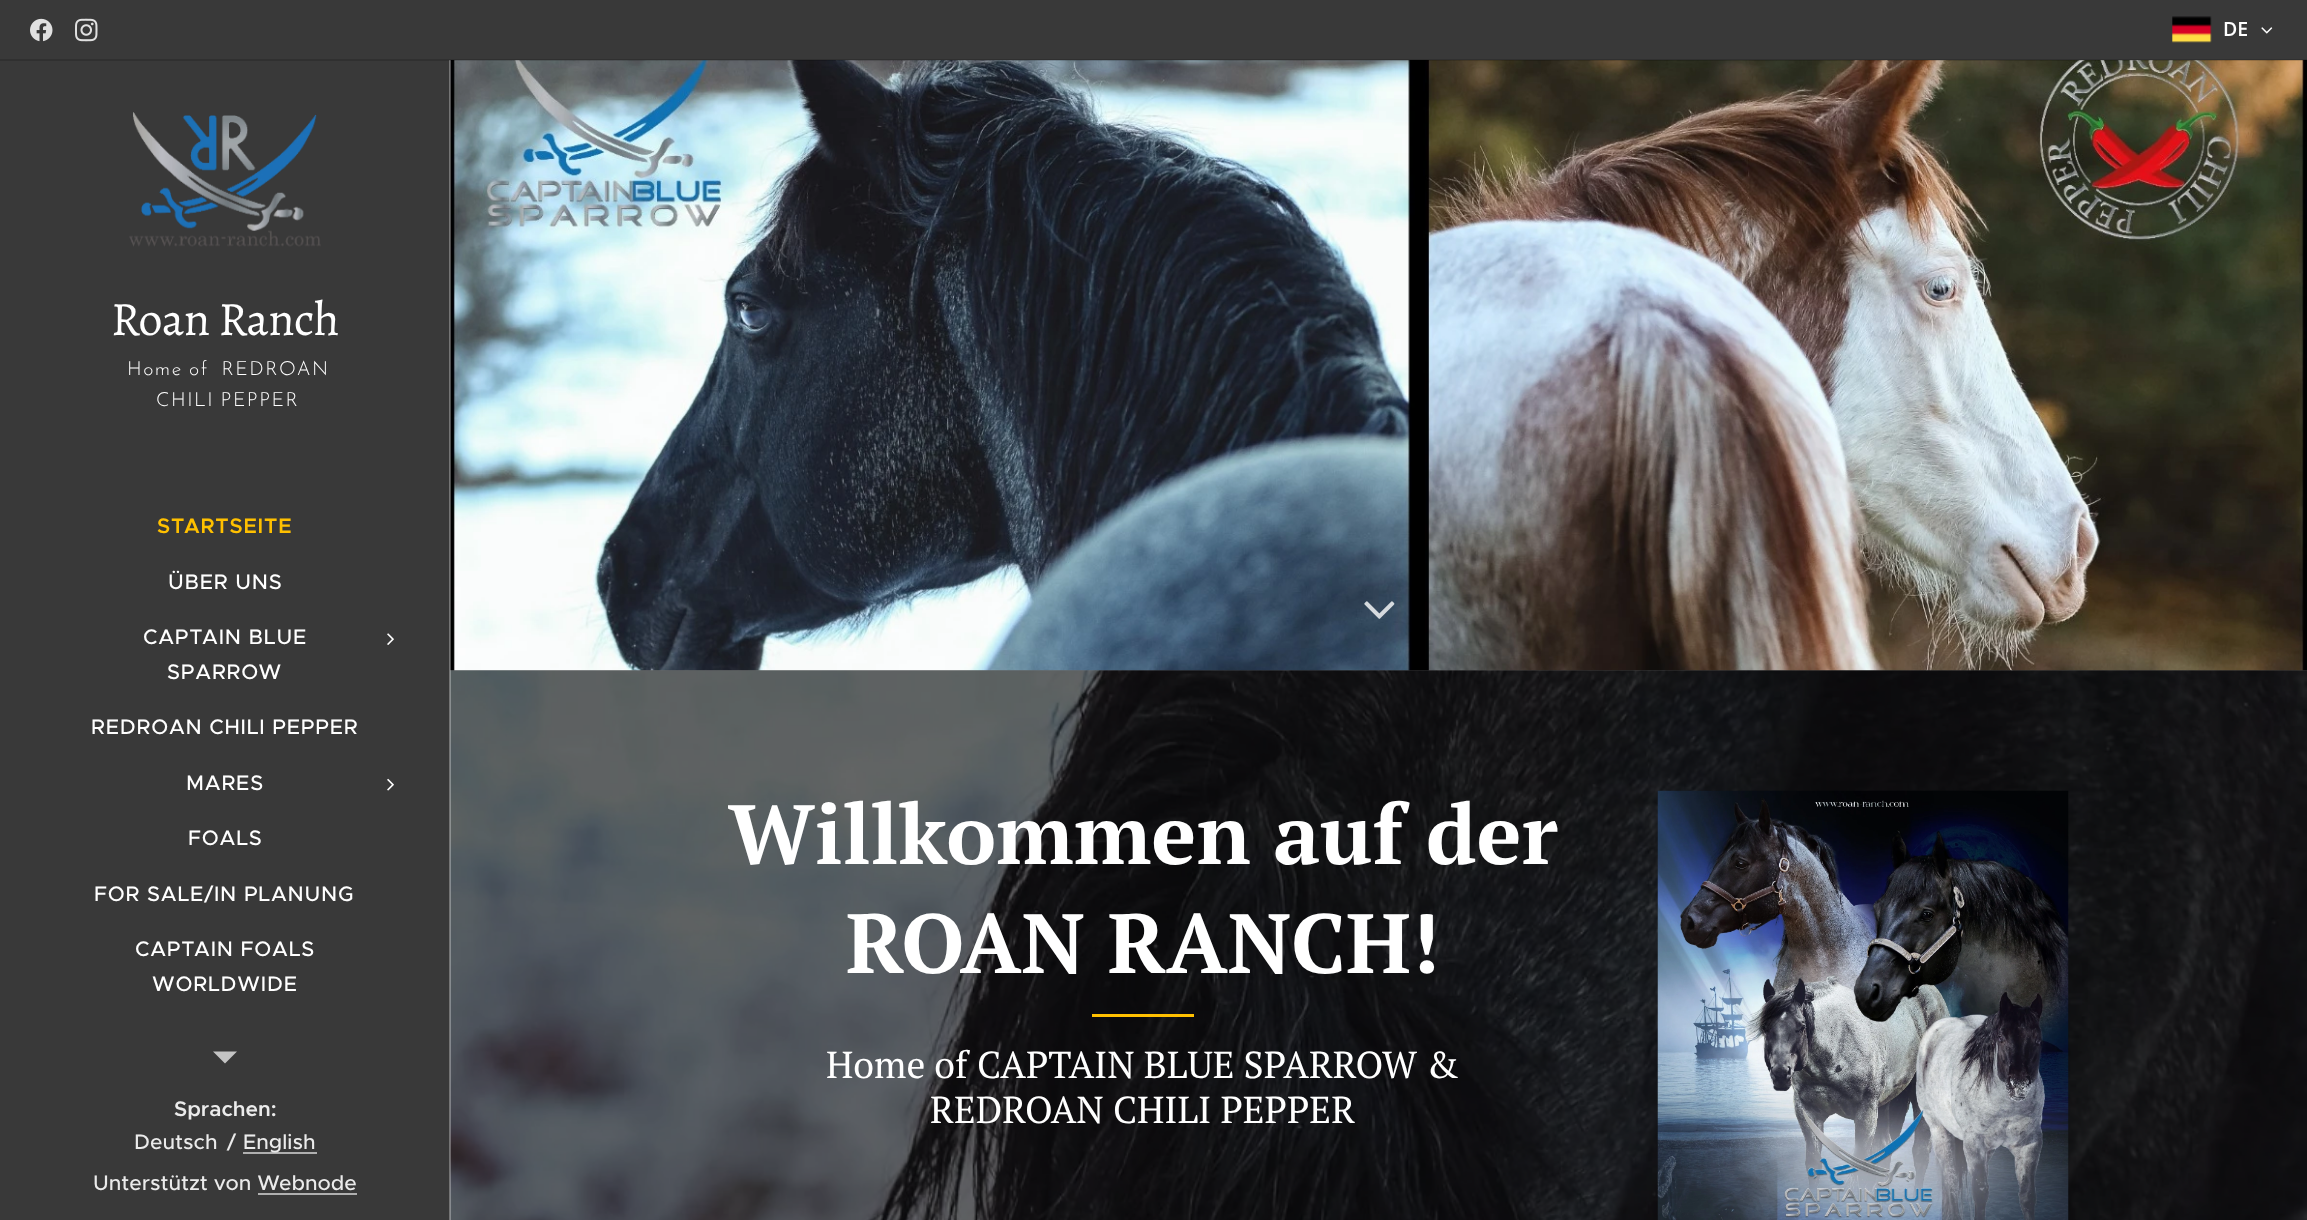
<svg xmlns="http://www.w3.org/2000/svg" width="2307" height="1220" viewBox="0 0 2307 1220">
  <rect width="100%" height="100%" fill="#272727"/>
  <path d="M0 0h2307v60H0z" fill="#393939"/>
  <image x="30" y="18" width="23" height="24" href="img/1.png"/>
  <image x="75" y="18" width="23" height="24" href="img/2.png"/>
  <image x="2172" y="16" width="40" height="27" href="img/3.png"/>
  <image x="2261" y="27" width="12" height="7" href="img/4.png"/>
  <path d="M0 60h450v1160H0z" fill="#393939"/>
  <image x="450" y="60" width="1857" height="611" href="img/8.png"/>
  <image x="450" y="670" width="1857" height="550" href="img/10.png"/>
  <path d="M449 60h2v1160H449z" fill="#ffffff4d"/>
  <path d="M0 59h2307v2H0z" fill="#00000026"/>
  <image x="129" y="112" width="192" height="135" href="img/5.png"/>
  <image x="387" y="633" width="7" height="12" href="img/6.png"/>
  <image x="387" y="778" width="7" height="13" href="img/7.png"/>
  <path d="M213 1051.5H237L225 1063.5Z" fill="#c4c4c4"/>
  <image x="1364" y="601" width="31" height="18" href="img/9.png"/>
  <path d="M1092 1014h102v3H1092z" fill="#ffc000"/>
  <image x="1657" y="790" width="412" height="430" href="img/11.png"/>
  <path d="M243 1152h74v2H243z" fill="#b0b0b0"/>
  <path d="M258 1193h99v2H258z" fill="#b0b0b0"/>
  <text x="2223" y="36" font-family="Open Sans" font-size="19.5" font-weight="600" fill="#fff">DE</text>
  <text x="111" y="335" font-family="Alegreya" font-size="48" letter-spacing="-0.5" fill="#fff">Roan Ranch</text>
  <g font-family="Josefin Sans" font-size="19.5" font-weight="300" letter-spacing="1.5" fill="#fff">
    <text x="127" y="375" word-spacing="-1" xml:space="preserve">Home of  REDROAN</text>
    <text x="156" y="406" word-spacing="-1">CHILI PEPPER</text>
  </g>
  <text x="157" y="533" font-family="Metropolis" font-size="21" font-weight="600" letter-spacing="0.8" fill="#ffc000">STARTSEITE</text>
  <g font-family="Metropolis" font-size="21" font-weight="500" letter-spacing="0.8" fill="#fff">
    <text x="168" y="589">ÜBER UNS</text>
    <text x="143" y="644">CAPTAIN BLUE</text>
    <text x="167" y="679">SPARROW</text>
    <text x="91" y="734">REDROAN CHILI PEPPER</text>
    <text x="186" y="790">MARES</text>
    <text x="188" y="845">FOALS</text>
    <text x="94" y="901">FOR SALE/IN PLANUNG</text>
    <text x="135" y="956">CAPTAIN FOALS</text>
    <text x="152" y="991">WORLDWIDE</text>
  </g>
  <g font-family="PT Serif" font-size="84" font-weight="bold" fill="#fff">
    <text x="728" y="864">Willkommen auf der</text>
    <text x="846" y="973">ROAN RANCH!</text>
  </g>
  <g font-family="PT Serif" font-size="37.5" fill="#fff">
    <text x="826" y="1078">Home of CAPTAIN BLUE SPARROW &amp;</text>
    <text x="930" y="1123">REDROAN CHILI PEPPER</text>
  </g>
  <text x="174" y="1116" font-family="Metropolis" font-size="21" font-weight="600" fill="#ebebeb">Sprachen:</text>
  <g font-family="Metropolis" font-size="21" font-weight="500" fill="#ebebeb">
    <text x="134" y="1149">Deutsch</text>
    <text x="227" y="1149">/</text>
    <text x="243" y="1149">English</text>
    <text x="93" y="1190">Unterstützt von Webnode</text>
  </g>
</svg>
